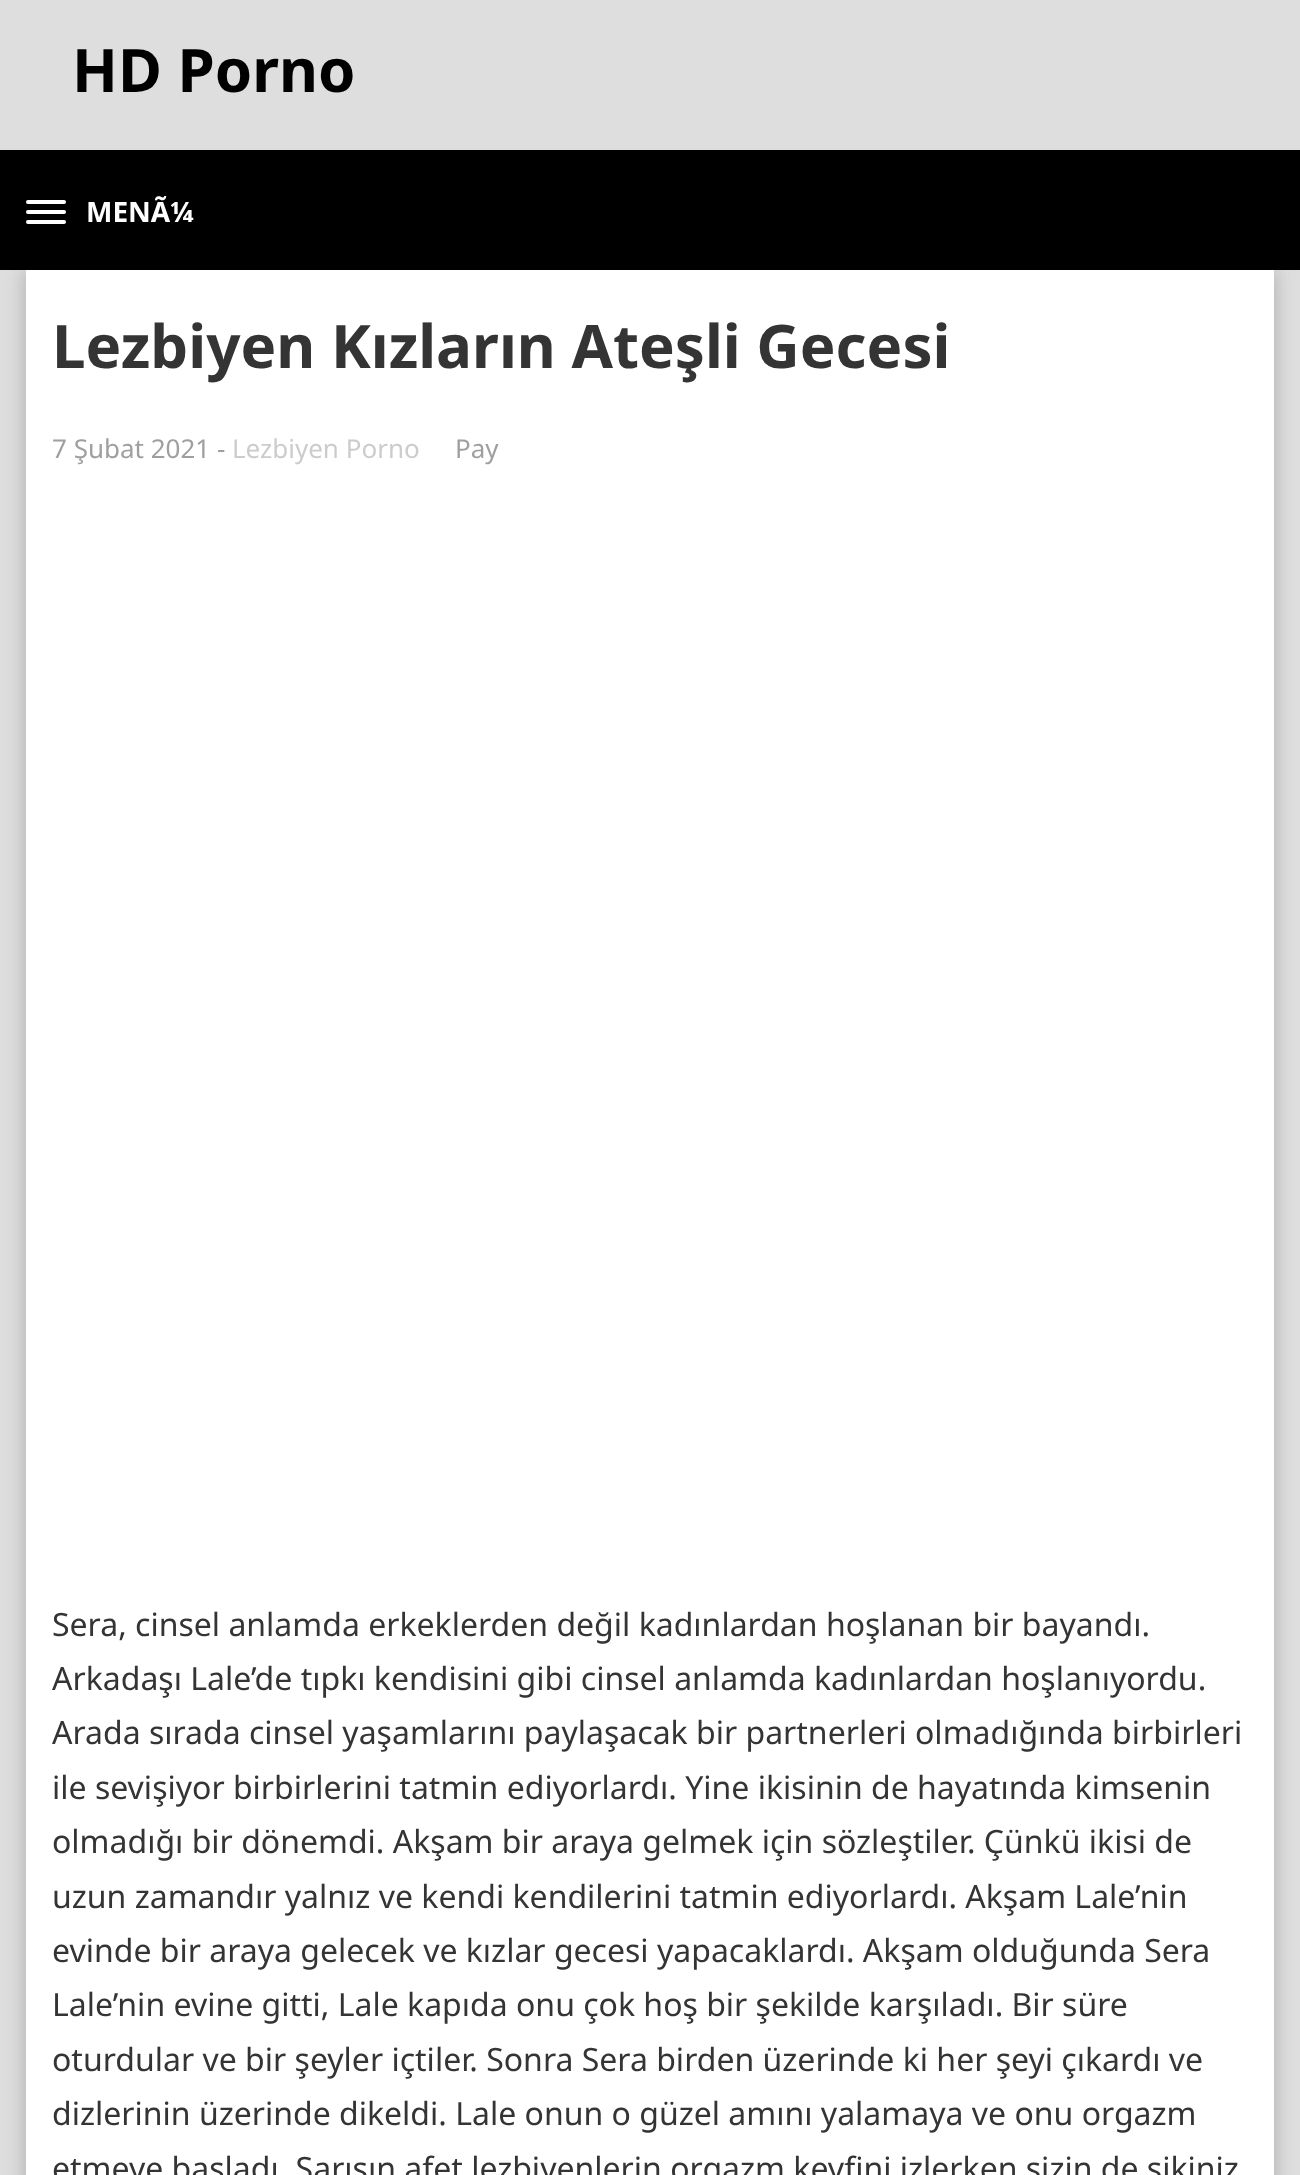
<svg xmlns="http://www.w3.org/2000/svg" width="1300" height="2175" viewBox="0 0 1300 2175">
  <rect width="100%" height="100%" fill="#dedede"/>
  <path d="M26 270h1248v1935H26z" fill="#78787880" filter="blur(10px)"/>
  <path d="M0 150h1300v120H0z" fill="#000"/>
  <rect x="26" y="200" width="40" height="4" rx="2" fill="#fff"/>
  <rect x="26" y="210" width="40" height="4" rx="2" fill="#fff"/>
  <rect x="26" y="220" width="40" height="4" rx="2" fill="#fff"/>
  <path d="M26 270h1248v1905H26z" fill="#fff"/>
  <text x="72" y="92" font-family="Noto Sans" font-size="60" font-weight="bold" fill="#000">HD Porno</text>
  <text x="86" y="222" font-family="Noto Sans" font-size="28" font-weight="bold" fill="#fff">MENÃ¼</text>
  <text x="52" y="368" font-family="Noto Sans" font-size="60" font-weight="bold" fill="#343434">Lezbiyen Kızların Ateşli Gecesi</text>
  <text x="52" y="458" font-family="Noto Sans" font-size="26" fill="#9f9f9f">7 Şubat 2021 -</text>
  <text x="232" y="458" font-family="Noto Sans" font-size="26" fill="#ccc">Lezbiyen Porno</text>
  <text x="455" y="458" font-family="Noto Sans" font-size="26" fill="#9f9f9f">Pay</text>
  <g font-family="Noto Sans" font-size="32" fill="#343434">
    <text x="52" y="1636">Sera, cinsel anlamda erkeklerden değil kadınlardan hoşlanan bir bayandı.</text>
    <text x="52" y="1690">Arkadaşı Lale’de tıpkı kendisini gibi cinsel anlamda kadınlardan hoşlanıyordu.</text>
    <text x="52" y="1744">Arada sırada cinsel yaşamlarını paylaşacak bir partnerleri olmadığında birbirleri</text>
    <text x="52" y="1799">ile sevişiyor birbirlerini tatmin ediyorlardı. Yine ikisinin de hayatında kimsenin</text>
    <text x="52" y="1853">olmadığı bir dönemdi. Akşam bir araya gelmek için sözleştiler. Çünkü ikisi de</text>
    <text x="52" y="1908">uzun zamandır yalnız ve kendi kendilerini tatmin ediyorlardı. Akşam Lale’nin</text>
    <text x="52" y="1962">evinde bir araya gelecek ve kızlar gecesi yapacaklardı. Akşam olduğunda Sera</text>
    <text x="52" y="2016">Lale’nin evine gitti, Lale kapıda onu çok hoş bir şekilde karşıladı. Bir süre</text>
    <text x="52" y="2071">oturdular ve bir şeyler içtiler. Sonra Sera birden üzerinde ki her şeyi çıkardı ve</text>
    <text x="52" y="2125">dizlerinin üzerinde dikeldi. Lale onun o güzel amını yalamaya ve onu orgazm</text>
    <text x="52" y="2180">etmeye başladı. Sarışın afet lezbiyenlerin orgazm keyfini izlerken sizin de sikiniz</text>
  </g>
</svg>
